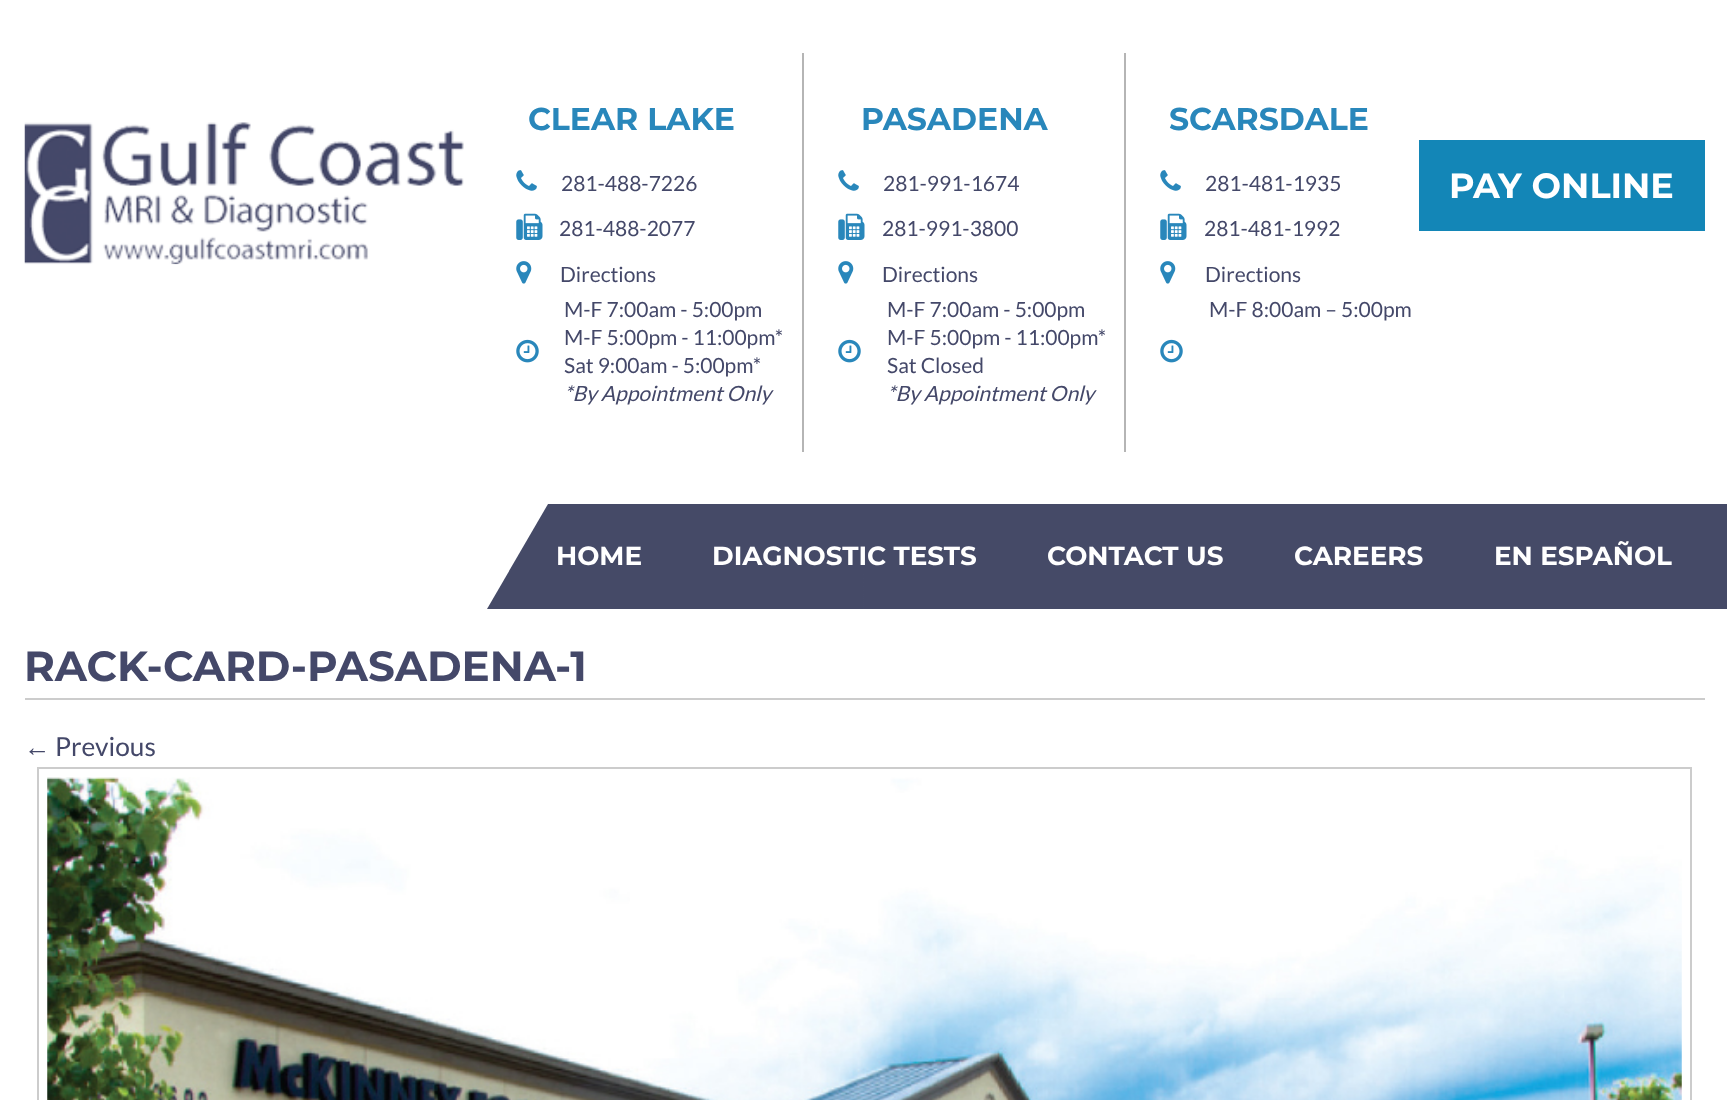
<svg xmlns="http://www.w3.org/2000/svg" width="1727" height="1100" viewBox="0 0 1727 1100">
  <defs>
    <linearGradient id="g1" gradientUnits="userSpaceOnUse" x1="0" y1="557" x2="1727" y2="556"><stop offset="0" stop-color="#fff"/><stop offset="0.49" stop-color="#fff"/><stop offset="0.5" stop-color="#454a67"/><stop offset="1" stop-color="#454a67"/></linearGradient>
  </defs>
  <rect width="100%" height="100%" fill="#fff"/>
  <image x="24" y="122" width="440" height="143" href="img/1.png"/>
  <path d="M802 53h2v399H802z" fill="#b5b5b5"/>
  <image x="516" y="170" width="21" height="21" href="img/2.png"/>
  <image x="516" y="213" width="27" height="27" href="img/3.png"/>
  <image x="516" y="261" width="16" height="23" href="img/4.png"/>
  <image x="516" y="339" width="23" height="24" href="img/5.png"/>
  <path d="M1124 53h2v399H1124z" fill="#b5b5b5"/>
  <image x="838" y="170" width="21" height="21" href="img/2.png"/>
  <image x="838" y="213" width="27" height="27" href="img/3.png"/>
  <image x="838" y="261" width="16" height="23" href="img/4.png"/>
  <image x="838" y="339" width="23" height="24" href="img/5.png"/>
  <image x="1160" y="170" width="21" height="21" href="img/2.png"/>
  <image x="1160" y="213" width="27" height="27" href="img/3.png"/>
  <image x="1160" y="261" width="16" height="23" href="img/4.png"/>
  <image x="1160" y="339" width="23" height="24" href="img/5.png"/>
  <path d="M1419 140h286v91H1419z" fill="#1386b7"/>
  <path d="M846 504h881v105H846z" fill="url(#g1)"/>
  <path d="M487 504h376v105H487z" fill="#454a67"/>
  <path d="M460 504H548L487 609H400Z" fill="#fff"/>
  <path d="M25 698h1680v2H25z" fill="#ccc"/>
  <path d="M38 768h1653v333H38z" fill="none" stroke="#ccc" stroke-width="2"/>
  <image x="47" y="777" width="1635" height="323" href="img/6.png"/>
  <text x="528" y="130" font-family="Montserrat" font-size="31.5" font-weight="bold" fill="#2987bb">CLEAR LAKE</text>
  <g font-family="Lato" font-size="21" fill="#444869">
    <text x="561" y="191">281-488-7226</text>
    <text x="559" y="236">281-488-2077</text>
    <text x="560" y="282">Directions</text>
    <text x="564" y="317">M-F 7:00am - 5:00pm</text>
    <text x="564" y="345">M-F 5:00pm - 11:00pm*</text>
    <text x="564" y="373">Sat 9:00am - 5:00pm*</text>
  </g>
  <text x="564" y="401" font-family="Lato" font-size="21" font-style="italic" fill="#444869">*By Appointment Only</text>
  <text x="861" y="130" font-family="Montserrat" font-size="31.5" font-weight="bold" fill="#2987bb">PASADENA</text>
  <g font-family="Lato" font-size="21" fill="#444869">
    <text x="883" y="191">281-991-1674</text>
    <text x="882" y="236">281-991-3800</text>
    <text x="882" y="282">Directions</text>
    <text x="887" y="317">M-F 7:00am - 5:00pm</text>
    <text x="887" y="345">M-F 5:00pm - 11:00pm*</text>
    <text x="887" y="373">Sat Closed</text>
  </g>
  <text x="887" y="401" font-family="Lato" font-size="21" font-style="italic" fill="#444869">*By Appointment Only</text>
  <text x="1169" y="130" font-family="Montserrat" font-size="31.5" font-weight="bold" fill="#2987bb">SCARSDALE</text>
  <g font-family="Lato" font-size="21" fill="#444869">
    <text x="1205" y="191">281-481-1935</text>
    <text x="1204" y="236">281-481-1992</text>
    <text x="1205" y="282">Directions</text>
    <text x="1209" y="317">M-F 8:00am – 5:00pm</text>
  </g>
  <text x="1449" y="198" font-family="Montserrat" font-size="35" font-weight="bold" fill="#fff">PAY ONLINE</text>
  <g font-family="Montserrat" font-size="26.25" font-weight="bold" fill="#fff">
    <text x="556" y="565">HOME</text>
    <text x="712" y="565">DIAGNOSTIC TESTS</text>
    <text x="1047" y="565">CONTACT US</text>
    <text x="1294" y="565">CAREERS</text>
    <text x="1494" y="565">EN ESPAÑOL</text>
  </g>
  <text x="24" y="681" font-family="Montserrat" font-size="42" font-weight="bold" fill="#444869">RACK-CARD-PASADENA-1</text>
  <text x="24" y="756" font-family="Liberation Sans" font-size="26.25" fill="#444869">←</text>
  <text x="55" y="756" font-family="Lato" font-size="26.25" fill="#444869">Previous</text>
</svg>
